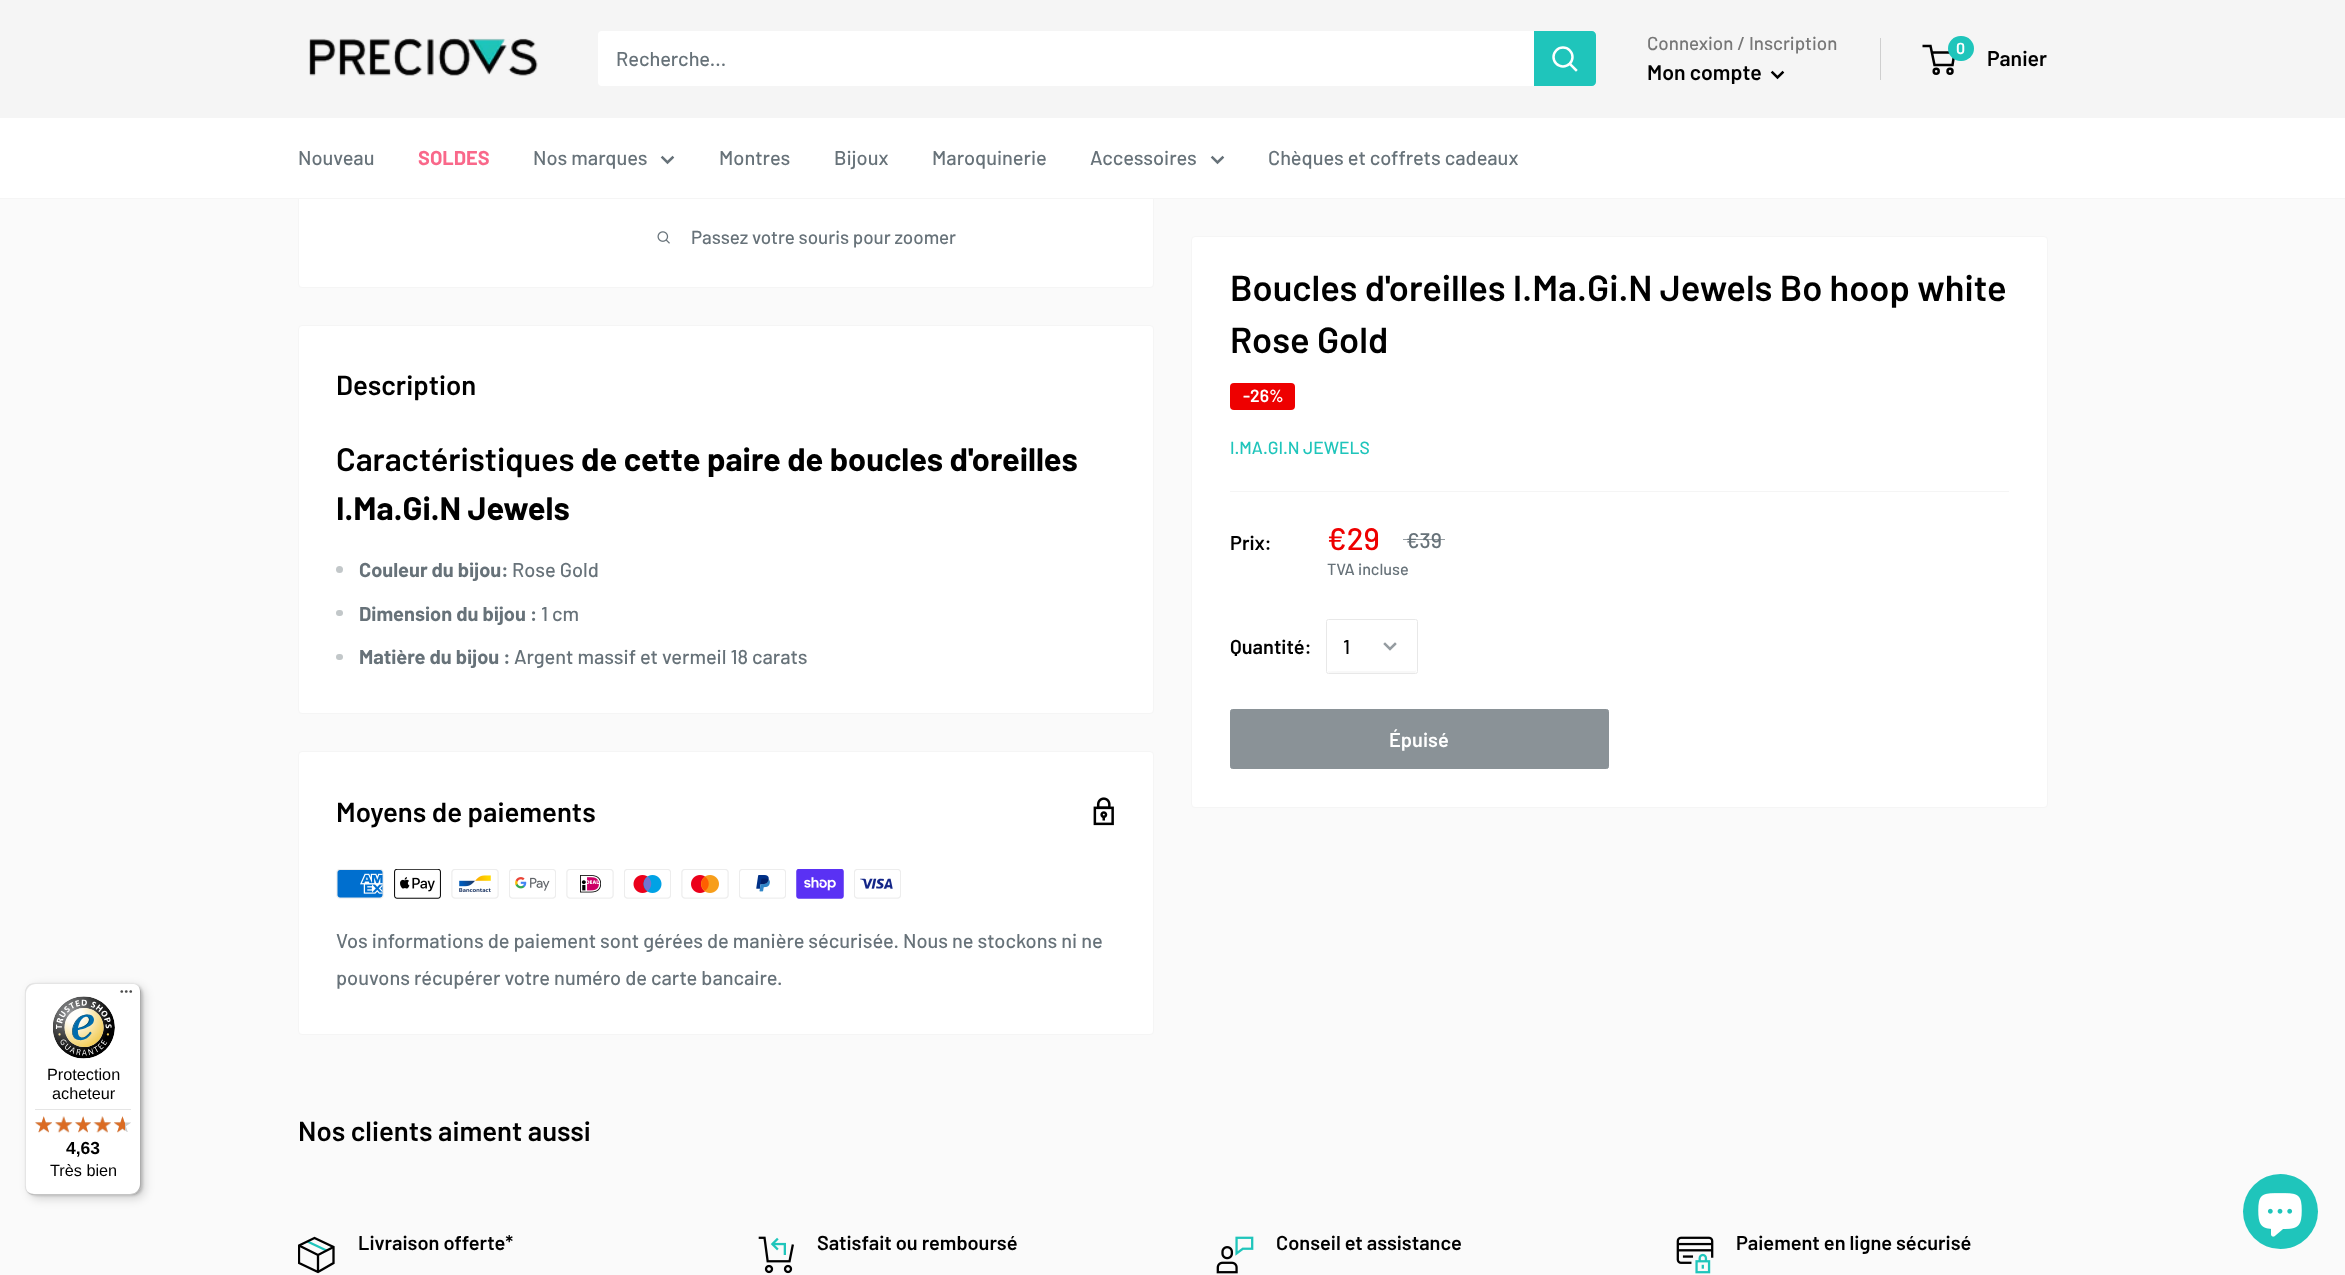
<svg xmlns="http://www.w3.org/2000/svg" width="2345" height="1275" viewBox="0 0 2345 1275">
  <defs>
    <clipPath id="clip1"><path d="M298 1236h37v38H298z"/></clipPath>
  </defs>
  <rect width="100%" height="100%" fill="#fafafa"/>
  <rect x="298.5" y="-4.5" width="855" height="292" rx="3.5" fill="#fff" stroke="#f5f5f5"/>
  <path d="M0 0h2345v118H0z" fill="#f5f5f5"/>
  <image x="309" y="38" width="229" height="38" href="img/1.png"/>
  <rect x="598" y="31" width="998" height="55" rx="4" fill="#fff"/>
  <path d="M1534 31H1592C1594 31 1596 33 1596 35V82C1596 84 1594 86 1592 86H1534Z" fill="#1fc5bb"/>
  <path d="M1576 70L1570 64" fill="none" stroke="#fff" stroke-width="2.5" stroke-linecap="square"/>
  <circle cx="1563" cy="57" r="9.5" fill="none" stroke="#fff" stroke-width="2.5"/>
  <path d="M1880 38h1v42H1880z" fill="#cfcfcf"/>
  <path d="M1782.5 72.5L1777.5 77.5L1772.5 72.5" fill="none" stroke="#000" stroke-width="2.5" stroke-linecap="square"/>
  <circle cx="1936.2" cy="71.2" r="2.5" fill="none" stroke="#000" stroke-width="2.5"/>
  <circle cx="1950" cy="71.2" r="2.5" fill="none" stroke="#000" stroke-width="2.5"/>
  <path d="M1931.5 52.5H1954.5L1952.5 65H1934.5L1930.5 46H1922.5" fill="none" stroke="#000" stroke-width="2.5"/>
  <rect x="1948" y="36" width="26" height="25" rx="12.5" fill="#1fc5bb"/>
  <path d="M0 118h2345v80H0z" fill="#fff"/>
  <path d="M0 198h2345v1H0z" fill="#f5f5f5"/>
  <path d="M672.5 157.5L667.5 162.5L662.5 157.5" fill="none" stroke="#677279" stroke-width="2.5" stroke-linecap="square"/>
  <path d="M1222.5 157.5L1217.5 162.5L1212.5 157.5" fill="none" stroke="#677279" stroke-width="2.5" stroke-linecap="square"/>
  <rect x="29" y="986" width="116" height="213" rx="10" fill="#00000026" filter="blur(5px)"/>
  <rect x="26" y="984" width="117" height="212" rx="10" fill="#00000026" filter="blur(1px)"/>
  <rect x="25" y="983" width="116" height="212" rx="10" fill="#fff"/>
  <path d="M36 984H132C134 984 136 984 137 985C136 984 133 983 131 983H35C29 983 25 987 25 993V1185C25 1188 26 1191 28 1193C27 1191 26 1189 26 1186V994C26 988 31 984 36 984Z" fill="#0000001a"/>
  <path d="M27 1192C29 1194 32 1195 35 1195H131C137 1195 141 1191 141 1185V993C141 991 140 989 139 987L140 991V1184C140 1189 136 1194 130 1194H34C31 1194 29 1193 27 1192Z" fill="#00000033"/>
  <path d="M27 1191C29 1194 32 1195 35 1195H131C137 1195 141 1191 141 1185V993C141 991 140 988 139 987C140 988 140 990 140 992V1184C140 1190 136 1194 130 1194H34C32 1194 29 1193 27 1191Z" fill="#32323233"/>
  <image x="120" y="990" width="13" height="3" href="img/2.png"/>
  <path d="M27 1191C29 1194 32 1195 35 1195H131C137 1195 141 1191 141 1185V1184C141 1190 136 1194 131 1194H34C32 1194 29 1193 27 1191Z" fill="#ffffff4d"/>
  <image x="53" y="996" width="62" height="63" href="img/3.png"/>
  <path d="M35 1109h96v1H35z" fill="#e5e5e5"/>
  <image x="35" y="1117" width="17" height="15" href="img/4.png"/>
  <image x="55" y="1116" width="17" height="17" href="img/5.png"/>
  <image x="75" y="1117" width="16" height="15" href="img/6.png"/>
  <image x="93" y="1116" width="18" height="17" href="img/7.png"/>
  <image x="114" y="1117" width="17" height="15" href="img/8.png"/>
  <image x="35" y="1116" width="17" height="17" href="img/9.png"/>
  <image x="55" y="1116" width="18" height="17" href="img/10.png"/>
  <image x="75" y="1116" width="16" height="17" href="img/11.png"/>
  <image x="93" y="1116" width="18" height="17" href="img/12.png"/>
  <image x="114" y="1116" width="11" height="17" href="img/13.png"/>
  <image x="657" y="231" width="13" height="13" href="img/14.png"/>
  <rect x="298.5" y="325.5" width="855" height="388" rx="3.5" fill="#fff" stroke="#f5f5f5"/>
  <circle cx="339.5" cy="569.5" r="3.5" fill="#c2c7c9"/>
  <rect x="336" y="610" width="7" height="6" rx="3" fill="#c2c7c9"/>
  <rect x="336" y="654" width="7" height="6" rx="3" fill="#c2c7c9"/>
  <rect x="1191.5" y="236.5" width="856" height="571" rx="3.5" fill="#fff" stroke="#f5f5f5"/>
  <rect x="1230" y="383" width="65" height="27" rx="4" fill="#e00"/>
  <path d="M1230 491h779v1H1230z" fill="#f5f5f5"/>
  <path d="M1328 671C1328 671 1328 673 1329 673H1401C1410 673 1416 677 1416 670L1415 671H1343C1333 671 1329 672 1328 671Z" fill="#f8f8f8"/>
  <rect x="1326.5" y="619.5" width="91" height="54" rx="2" fill="none" stroke="#e8e8e8"/>
  <path d="M1395 644L1390 649L1385 644" fill="none" stroke="#959ca1" stroke-width="2.5" stroke-linecap="square"/>
  <rect x="1230.5" y="709.5" width="378" height="59" rx="2" fill="#8a9297" stroke="#8a9297"/>
  <rect x="298.5" y="751.5" width="855" height="283" rx="3.5" fill="#fff" stroke="#f5f5f5"/>
  <image x="1093" y="797" width="21" height="29" href="img/15.png"/>
  <image x="336" y="869" width="48" height="30" href="img/16.png"/>
  <image x="394" y="869" width="47" height="30" href="img/17.png"/>
  <image x="451" y="869" width="48" height="30" href="img/18.png"/>
  <image x="509" y="869" width="47" height="30" href="img/19.png"/>
  <image x="566" y="869" width="48" height="30" href="img/20.png"/>
  <image x="624" y="869" width="47" height="30" href="img/21.png"/>
  <image x="681" y="869" width="48" height="30" href="img/22.png"/>
  <image x="739" y="869" width="47" height="30" href="img/23.png"/>
  <image x="796" y="869" width="48" height="30" href="img/24.png"/>
  <image x="854" y="869" width="47" height="30" href="img/25.png"/>
  <path d="M307.5 1241.5L326.5 1250.5" fill="none" stroke="#1fc5bb" stroke-width="2.3"/>
  <path d="M333.5 1247L318 1255L299 1245.5M318 1255V1272" fill="none" stroke="#000" stroke-width="2.3"/>
  <g clip-path="url(#clip1)">
    <path d="M333.5 1247V1263L318 1272L299 1263V1245.5L314.5 1238Z" fill="none" stroke="#000" stroke-width="2.3" stroke-linecap="square"/>
  </g>
  <image x="758" y="1236" width="36" height="38" href="img/26.png"/>
  <image x="1216" y="1236" width="38" height="38" href="img/27.png"/>
  <image x="1676" y="1236" width="38" height="38" href="img/28.png"/>
  <circle cx="2280.5" cy="1211.5" r="37.5" fill="#1fc5bb"/>
  <image x="2258" y="1193" width="44" height="44" href="img/29.png"/>
  <text x="616" y="66" font-family="Barlow" font-size="20" font-weight="500" fill="#677279">Recherche...</text>
  <text x="1647" y="50" font-family="Barlow" font-size="18.75" font-weight="500" fill="#777">Connexion / Inscription</text>
  <text x="1647" y="80" font-family="Barlow" font-size="21.25" font-weight="600" fill="#000">Mon compte</text>
  <text x="1956" y="54" font-family="Barlow" font-size="16" font-weight="600" fill="#fff">0</text>
  <text x="1987" y="66" font-family="Barlow" font-size="21.25" font-weight="600" fill="#000">Panier</text>
  <text x="298" y="165" font-family="Barlow" font-size="20" font-weight="500" fill="#677279">Nouveau</text>
  <text x="418" y="165" font-family="Barlow" font-size="20" font-weight="bold" fill="#f9688a">SOLDES</text>
  <g font-family="Barlow" font-size="20" font-weight="500" fill="#677279">
    <text x="533" y="165">Nos marques</text>
    <text x="719" y="165">Montres</text>
    <text x="834" y="165">Bijoux</text>
    <text x="932" y="165">Maroquinerie</text>
    <text x="1090" y="165">Accessoires</text>
    <text x="1268" y="165">Chèques et coffrets cadeaux</text>
  </g>
  <g font-family="Liberation Sans" font-size="16.25" fill="#000">
    <text x="47" y="1080">Protection</text>
    <text x="52" y="1099">acheteur</text>
  </g>
  <text x="66" y="1154" font-family="Liberation Sans" font-size="17.5" font-weight="bold" fill="#000">4,63</text>
  <text x="50" y="1176" font-family="Liberation Sans" font-size="16.25" fill="#000">Très bien</text>
  <text x="691" y="244" font-family="Barlow" font-size="18.75" font-weight="500" fill="#677279">Passez votre souris pour zoomer</text>
  <text x="336" y="395" font-family="Barlow" font-size="27.5" font-weight="600" fill="#000">Description</text>
  <text x="336" y="471" font-family="Barlow" font-size="32.5" font-weight="600" fill="#000">Caractéristiques</text>
  <g font-family="Barlow" font-size="32.5" font-weight="bold" fill="#000">
    <text x="581" y="471">de cette paire de boucles d'oreilles</text>
    <text x="336" y="520">I.Ma.Gi.N Jewels</text>
  </g>
  <text x="359" y="577" font-family="Barlow" font-size="20" font-weight="bold" fill="#677279">Couleur du bijou:</text>
  <text x="512" y="577" font-family="Barlow" font-size="20" font-weight="500" fill="#677279">Rose Gold</text>
  <text x="359" y="621" font-family="Barlow" font-size="20" font-weight="bold" fill="#677279">Dimension du bijou :</text>
  <text x="541" y="621" font-family="Barlow" font-size="20" font-weight="500" fill="#677279">1 cm</text>
  <text x="359" y="664" font-family="Barlow" font-size="20" font-weight="bold" fill="#677279">Matière du bijou :</text>
  <text x="514" y="664" font-family="Barlow" font-size="20" font-weight="500" fill="#677279">Argent massif et vermeil 18 carats</text>
  <g font-family="Barlow" font-size="36.25" font-weight="600" fill="#000">
    <text x="1230" y="301">Boucles d'oreilles I.Ma.Gi.N Jewels Bo hoop white</text>
    <text x="1230" y="353">Rose Gold</text>
  </g>
  <text x="1243" y="402" font-family="Barlow" font-size="17.5" font-weight="600" fill="#fff">-26%</text>
  <text x="1230" y="454" font-family="Barlow" font-size="17.5" font-weight="500" fill="#1fc5bb">I.MA.GI.N JEWELS</text>
  <text x="1230" y="550" font-family="Barlow" font-size="20" font-weight="600" fill="#000">Prix:</text>
  <text x="1327" y="550" font-family="Barlow" font-size="31" font-weight="500" fill="#e00">€29</text>
  <text x="1406" y="548" font-family="Barlow" font-size="21.25" font-weight="500" fill="#677279">€39</text>
  <path d="M1403 539h42v1H1403z" fill="#677279b3"/>
  <text x="1327" y="575" font-family="Barlow" font-size="16.25" font-weight="500" fill="#677279">TVA incluse</text>
  <text x="1230" y="654" font-family="Barlow" font-size="20" font-weight="600" fill="#000">Quantité:</text>
  <text x="1343" y="654" font-family="Barlow" font-size="20" font-weight="500" fill="#000">1</text>
  <text x="1389" y="747" font-family="Barlow" font-size="20" font-weight="600" fill="#fff">Épuisé</text>
  <text x="336" y="822" font-family="Barlow" font-size="27.5" font-weight="600" fill="#000">Moyens de paiements</text>
  <g font-family="Barlow" font-size="20" font-weight="500" fill="#677279">
    <text x="336" y="948">Vos informations de paiement sont gérées de manière sécurisée. Nous ne stockons ni ne</text>
    <text x="336" y="985">pouvons récupérer votre numéro de carte bancaire.</text>
  </g>
  <text x="298" y="1141" font-family="Barlow" font-size="27.5" font-weight="600" fill="#000">Nos clients aiment aussi</text>
  <g font-family="Barlow" font-size="20" font-weight="600" fill="#000">
    <text x="358" y="1250">Livraison offerte*</text>
    <text x="817" y="1250">Satisfait ou remboursé</text>
    <text x="1276" y="1250">Conseil et assistance</text>
    <text x="1736" y="1250">Paiement en ligne sécurisé</text>
  </g>
</svg>
